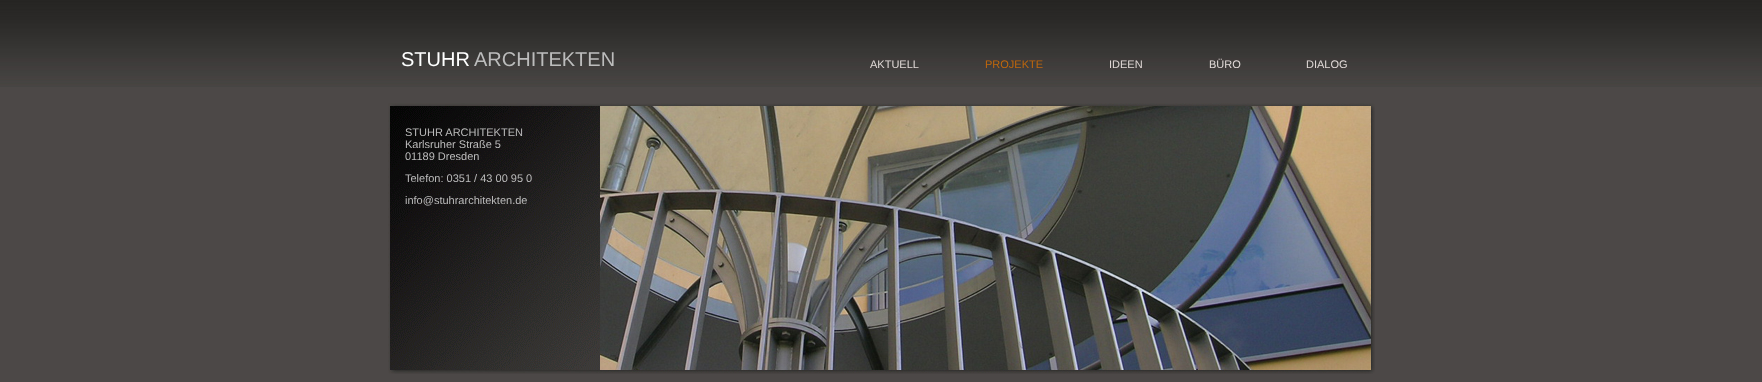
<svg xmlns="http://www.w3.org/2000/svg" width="1762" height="382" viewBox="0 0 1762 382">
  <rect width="100%" height="100%" fill="#4c4847"/>
  <image x="0" y="0" width="1762" height="87" href="img/1.png"/>
  <image x="388" y="103" width="987" height="271" href="img/2.png"/>
  <image x="390" y="106" width="210" height="264" href="img/3.png"/>
  <image x="600" y="106" width="771" height="264" href="img/4.png"/>
  <text x="401" y="66" font-family="Liberation Sans" font-size="20" fill="#fff">STUHR</text>
  <text x="474" y="66" font-family="Liberation Sans" font-size="20" fill="#bcbcbc">ARCHITEKTEN</text>
  <text x="870" y="68" font-family="Liberation Sans" font-size="11" fill="#e1d9d7">AKTUELL</text>
  <text x="985" y="68" font-family="Liberation Sans" font-size="11" fill="#c0670c">PROJEKTE</text>
  <g font-family="Liberation Sans" font-size="11" fill="#e1d9d7">
    <text x="1109" y="68">IDEEN</text>
    <text x="1209" y="68">BÜRO</text>
    <text x="1306" y="68">DIALOG</text>
  </g>
  <g font-family="Liberation Sans" font-size="11" fill="#bcbcbc">
    <text x="405" y="136">STUHR ARCHITEKTEN</text>
    <text x="405" y="148">Karlsruher Straße 5</text>
    <text x="405" y="160">01189 Dresden</text>
    <text x="405" y="182">Telefon: 0351 / 43 00 95 0</text>
    <text x="405" y="204">info@stuhrarchitekten.de</text>
  </g>
</svg>
